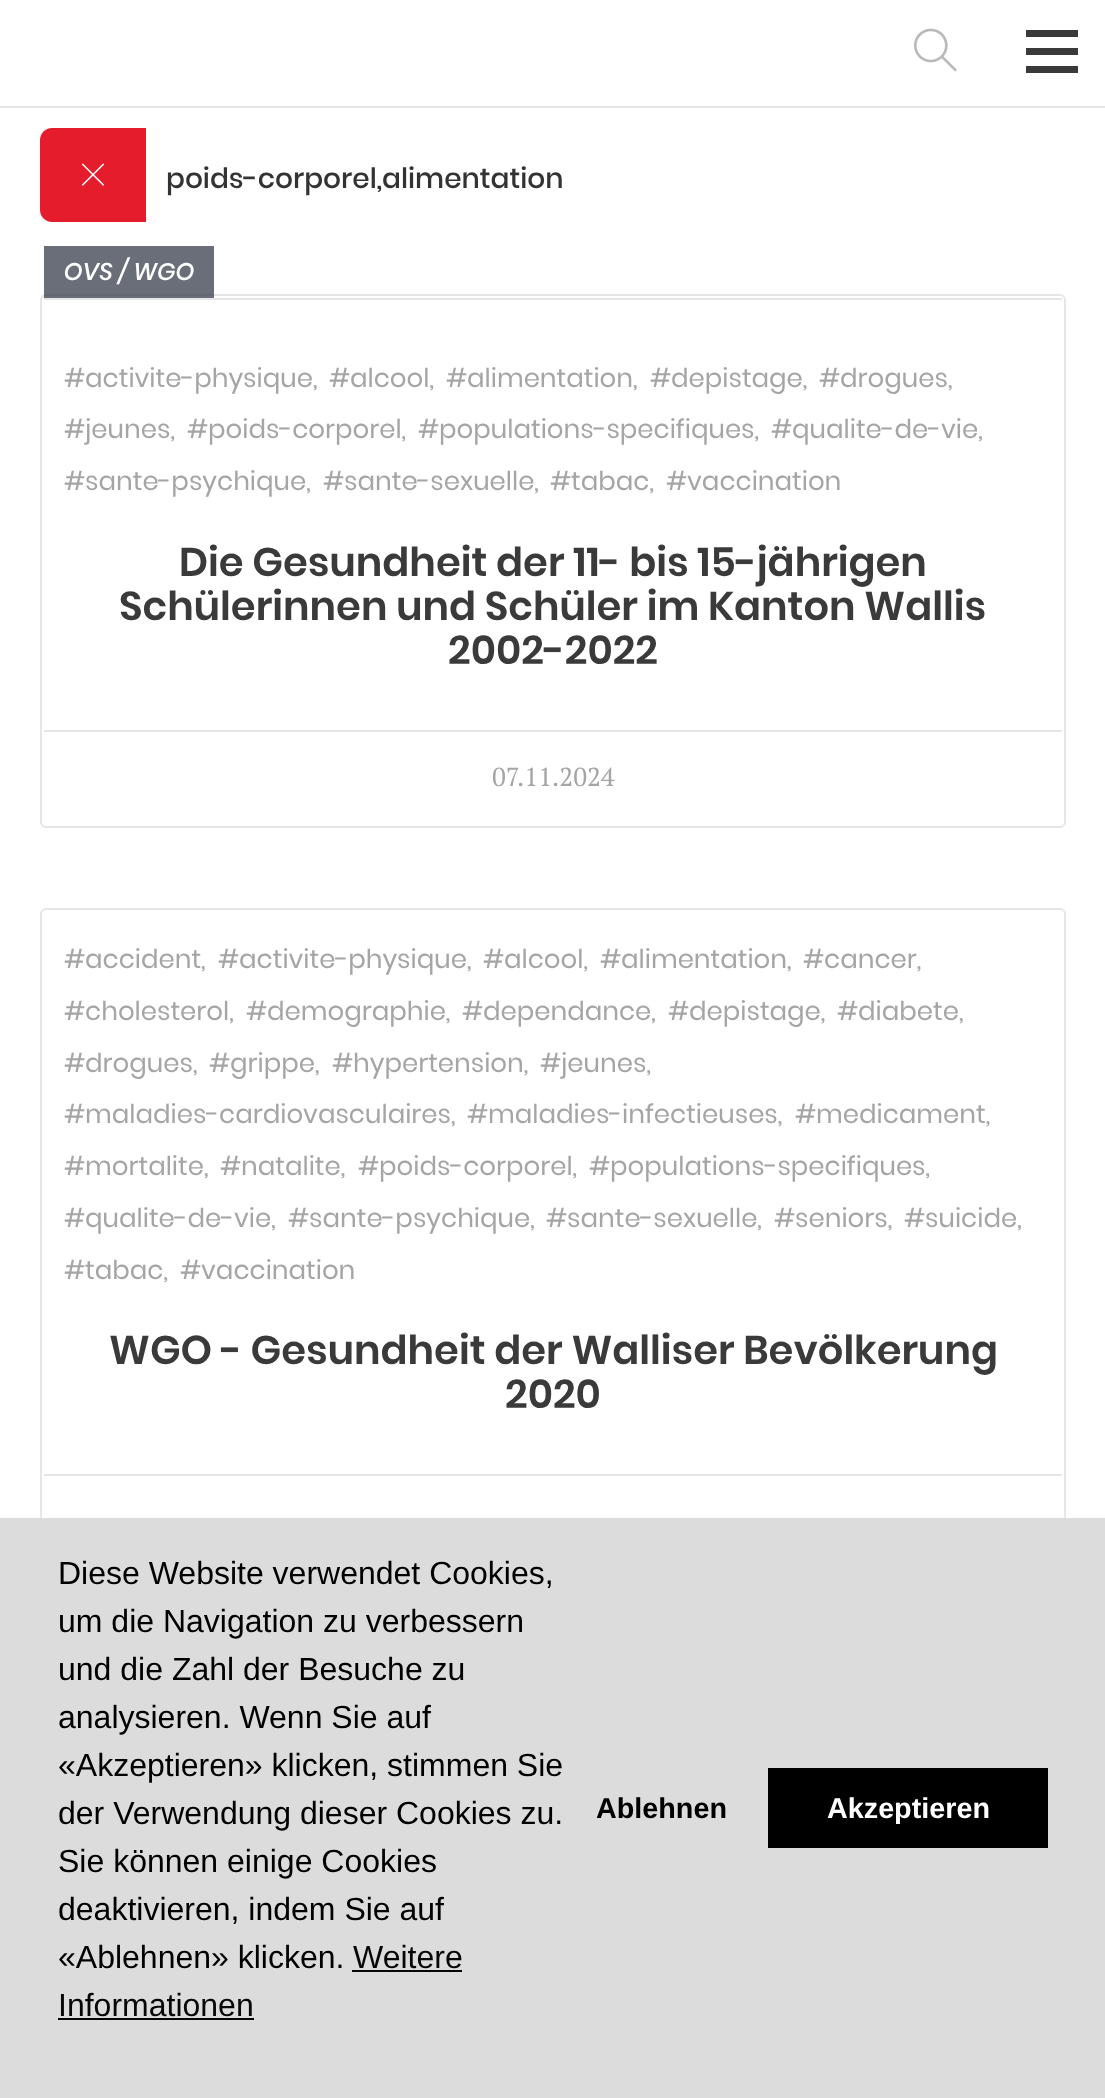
<svg xmlns="http://www.w3.org/2000/svg" width="1105" height="2098" viewBox="0 0 1105 2098">
  <rect width="100%" height="100%" fill="#fff"/>
  <path d="M0 106h1105v2H0z" fill="#e6e6e6"/>
  <image x="914" y="28" width="43" height="44" href="img/1.png"/>
  <path d="M1078 30V37H1026V30ZM1026 55H1078V48H1026ZM1026 73H1078V66H1026Z" fill="#3a3a3a"/>
  <path d="M52 128H146V222H52C45.5 222 40 216.5 40 210V140C40 133.5 45.5 128 52 128Z" fill="#e51c2c"/>
  <image x="81" y="163" width="24" height="23" href="img/2.png"/>
  <rect x="41" y="295" width="1024" height="532" rx="5" fill="none" stroke="#e6e6e6" stroke-width="2"/>
  <path d="M44 298h1018v2H44z" fill="#e6e6e6"/>
  <path d="M44 246h170v52H44z" fill="#2a3040b3"/>
  <path d="M44 730h1018v2H44z" fill="#e6e6e6"/>
  <rect x="41" y="909" width="1024" height="662" rx="5" fill="none" stroke="#e6e6e6" stroke-width="2"/>
  <path d="M44 1474h1018v2H44z" fill="#e6e6e6"/>
  <path d="M0 1518h1105v580H0z" fill="#dcdcdc"/>
  <path d="M352 1970h110v2H352z" fill="#070707"/>
  <path d="M58 2018h196v2H58z" fill="#070707"/>
  <path d="M768 1768h280v80H768z" fill="#000"/>
  <text x="166" y="188" font-family="Poppins" font-size="28" font-weight="500" fill="#333">poids-corporel,alimentation</text>
  <text x="64" y="280" font-family="Poppins" font-size="24" font-weight="500" font-style="italic" fill="#fff">OVS / WGO</text>
  <g font-family="Poppins" font-size="26" fill="#a5a5a5">
    <text x="64" y="387">#activite-physique,</text>
    <text x="329" y="387">#alcool,</text>
    <text x="446" y="387">#alimentation,</text>
    <text x="650" y="387">#depistage,</text>
    <text x="819" y="387">#drogues,</text>
    <text x="64" y="438">#jeunes,</text>
    <text x="187" y="438">#poids-corporel,</text>
    <text x="418" y="438">#populations-specifiques,</text>
    <text x="771" y="438">#qualite-de-vie,</text>
    <text x="64" y="490">#sante-psychique,</text>
    <text x="323" y="490">#sante-sexuelle,</text>
    <text x="550" y="490">#tabac,</text>
    <text x="666" y="490">#vaccination</text>
  </g>
  <g font-family="Poppins" font-size="40" font-weight="600" fill="#3a3a3a">
    <text x="179" y="576">Die Gesundheit der 11- bis 15-jährigen</text>
    <text x="119" y="620">Schülerinnen und Schüler im Kanton Wallis</text>
    <text x="448" y="664">2002-2022</text>
  </g>
  <text x="492" y="786" font-family="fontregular" font-size="26" fill="#a5a5a5">07.11.2024</text>
  <g font-family="Poppins" font-size="26" fill="#a5a5a5">
    <text x="64" y="968">#accident,</text>
    <text x="218" y="968">#activite-physique,</text>
    <text x="483" y="968">#alcool,</text>
    <text x="600" y="968">#alimentation,</text>
    <text x="803" y="968">#cancer,</text>
    <text x="64" y="1020">#cholesterol,</text>
    <text x="246" y="1020">#demographie,</text>
    <text x="462" y="1020">#dependance,</text>
    <text x="668" y="1020">#depistage,</text>
    <text x="837" y="1020">#diabete,</text>
    <text x="64" y="1072">#drogues,</text>
    <text x="209" y="1072">#grippe,</text>
    <text x="332" y="1072">#hypertension,</text>
    <text x="540" y="1072">#jeunes,</text>
    <text x="64" y="1123">#maladies-cardiovasculaires,</text>
    <text x="467" y="1123">#maladies-infectieuses,</text>
    <text x="795" y="1123">#medicament,</text>
    <text x="64" y="1175">#mortalite,</text>
    <text x="220" y="1175">#natalite,</text>
    <text x="358" y="1175">#poids-corporel,</text>
    <text x="589" y="1175">#populations-specifiques,</text>
    <text x="64" y="1227">#qualite-de-vie,</text>
    <text x="288" y="1227">#sante-psychique,</text>
    <text x="546" y="1227">#sante-sexuelle,</text>
    <text x="774" y="1227">#seniors,</text>
    <text x="904" y="1227">#suicide,</text>
    <text x="64" y="1279">#tabac,</text>
    <text x="180" y="1279">#vaccination</text>
  </g>
  <g font-family="Poppins" font-size="40" font-weight="600" fill="#3a3a3a">
    <text x="109" y="1364">WGO - Gesundheit der Walliser Bevölkerung</text>
    <text x="505" y="1408">2020</text>
  </g>
  <g font-family="Liberation Sans" font-size="32" fill="#000">
    <text x="58" y="1584">Diese Website verwendet Cookies,</text>
    <text x="58" y="1632">um die Navigation zu verbessern</text>
    <text x="58" y="1680">und die Zahl der Besuche zu</text>
    <text x="58" y="1728">analysieren. Wenn Sie auf</text>
    <text x="58" y="1776">«Akzeptieren» klicken, stimmen Sie</text>
    <text x="58" y="1824">der Verwendung dieser Cookies zu.</text>
    <text x="58" y="1872">Sie können einige Cookies</text>
    <text x="58" y="1920">deaktivieren, indem Sie auf</text>
    <text x="58" y="1968">«Ablehnen» klicken.</text>
  </g>
  <g font-family="Liberation Sans" font-size="32" fill="#070707">
    <text x="353" y="1968">Weitere</text>
    <text x="58" y="2016">Informationen</text>
  </g>
  <text x="596" y="1818" font-family="Liberation Sans" font-size="28.75" font-weight="bold" fill="#000">Ablehnen</text>
  <text x="827" y="1818" font-family="Liberation Sans" font-size="28.75" font-weight="bold" fill="#fff">Akzeptieren</text>
</svg>
